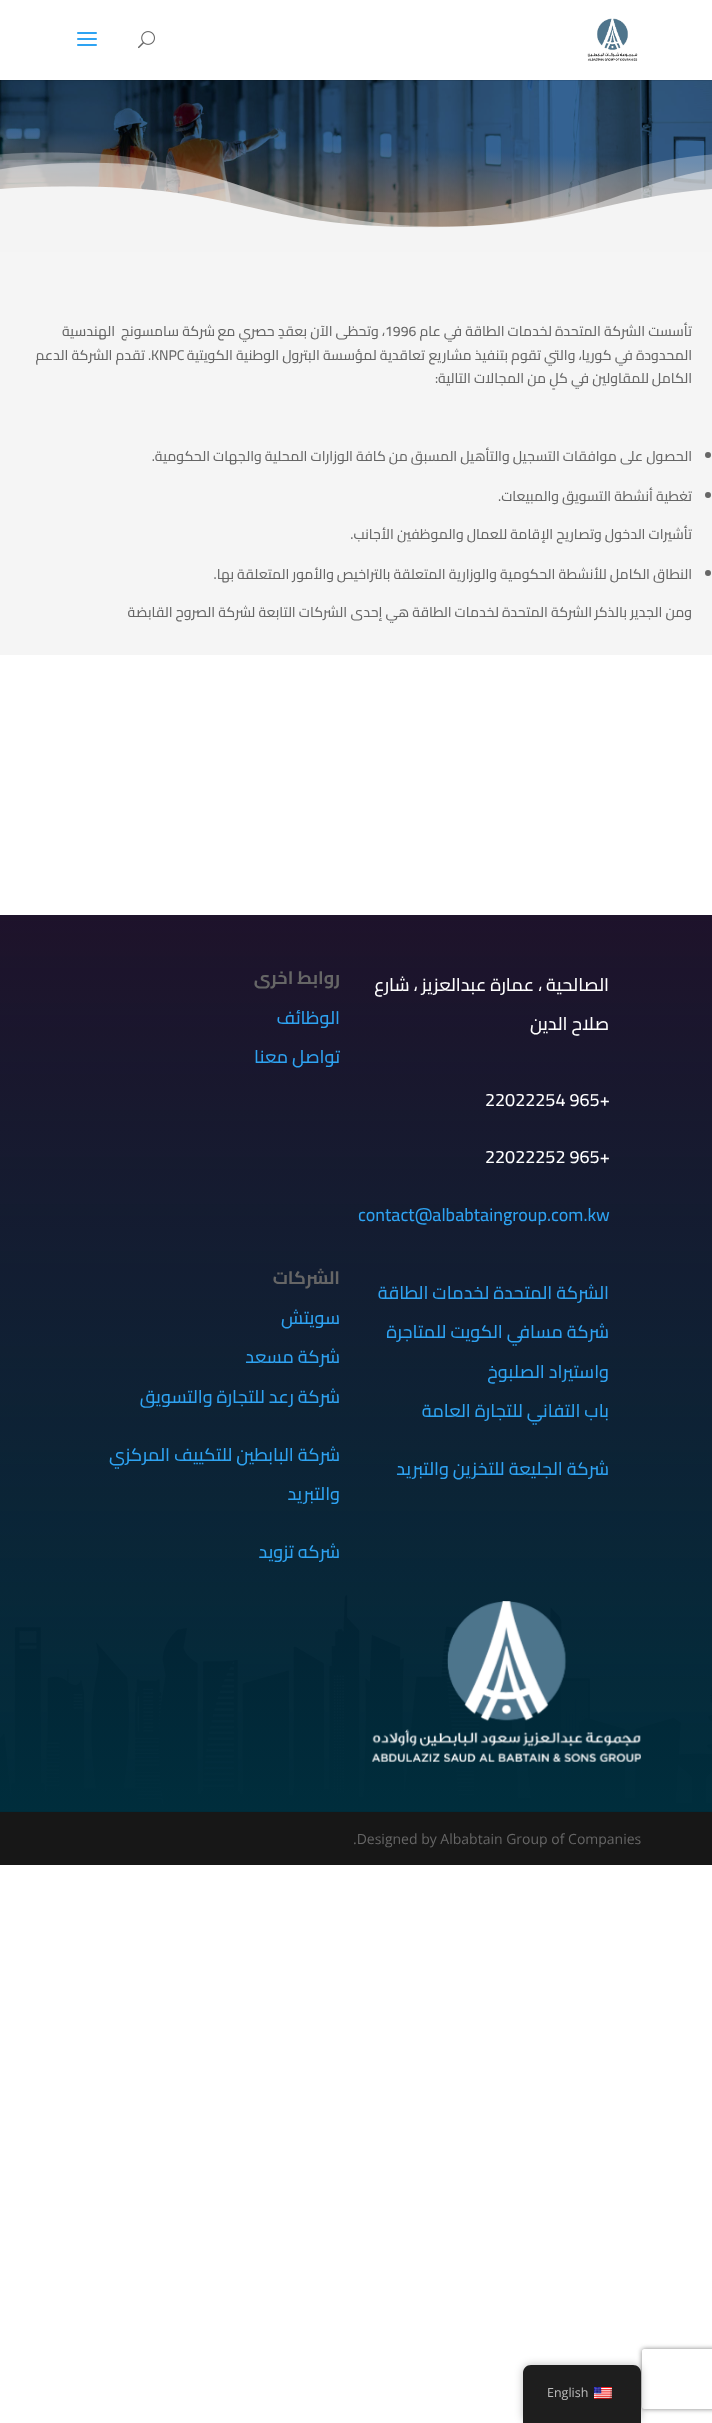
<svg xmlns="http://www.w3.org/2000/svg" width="712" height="2423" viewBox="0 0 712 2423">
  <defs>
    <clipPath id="clip1"><path d="M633 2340H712V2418H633ZM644 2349H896C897 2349 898 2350 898 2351V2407C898 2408 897 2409 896 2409H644C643 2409 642 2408 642 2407V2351C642 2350 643 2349 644 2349Z" clip-rule="evenodd"/></clipPath>
  </defs>
  <rect width="100%" height="100%" fill="#fff"/>
  <image x="0" y="80" width="712" height="148" href="img/4.png"/>
  <path d="M0 80h712v1H0z" fill="#0000001a"/>
  <image x="587" y="18" width="51" height="43" href="img/1.png"/>
  <image x="138" y="31" width="17" height="18" href="img/2.png"/>
  <image x="77" y="32" width="20" height="14" href="img/3.png"/>
  <image x="0" y="152" width="712" height="100" href="img/5.png"/>
  <path d="M0 252h712v403H0z" fill="#f5f5f5"/>
  <circle cx="708" cy="455" r="3" fill="#666"/>
  <circle cx="708" cy="495" r="3" fill="#666"/>
  <circle cx="708" cy="573" r="3" fill="#666"/>
  <path d="M0 915h712v888H0z" fill="#3c3d41"/>
  <image x="0" y="915" width="712" height="897" href="img/6.png"/>
  <image x="371" y="1601" width="270" height="161" href="img/7.png"/>
  <path d="M0 1812h712v53H0z" fill="#171717"/>
  <g clip-path="url(#clip1)">
    <rect x="642" y="2349" width="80" height="60" rx="2" fill="#808080" filter="blur(2.5px)"/>
  </g>
  <rect x="523" y="2365" width="118" height="58" rx="8" fill="#00000040" filter="blur(4px)"/>
  <path d="M531 2365H633C637.5 2365 641 2368.5 641 2373V2423H523V2373C523 2368.5 526.5 2365 531 2365Z" fill="#1e1e1e"/>
  <image x="594" y="2387" width="18" height="12" href="img/8.png"/>
  <g font-family="Cairo" font-size="14" font-weight="500" direction="rtl" fill="#666">
    <text x="692" y="336">تأسست</text>
    <text x="645" y="336">الشركة المتحدة لخدمات الطاقة</text>
    <text x="462" y="336">في عام</text>
  </g>
  <text x="385" y="336" font-family="Cairo" font-size="14" font-weight="500" fill="#666">1996</text>
  <g font-family="Cairo" font-size="14" font-weight="500" direction="rtl" fill="#666">
    <text x="385" y="336">، وتحظى الآن بعقدٍ حصري مع</text>
    <text x="215" y="336">شركة</text>
    <text x="179" y="336">سامسونج</text>
    <text x="115" y="336">الهندسية</text>
    <text x="692" y="360">المحدودة في كوريا، والتي تقوم بتنفيذ مشاريع</text>
    <text x="425" y="360">تعاقدية لمؤسسة البترول الوطنية الكويتية</text>
  </g>
  <text x="151" y="360" font-family="Cairo" font-size="14" font-weight="500" fill="#666">KNPC</text>
  <g font-family="Cairo" font-size="14" font-weight="500" direction="rtl" fill="#666">
    <text x="151" y="360">. تقدم الشركة الدعم</text>
    <text x="692" y="383">الكامل</text>
    <text x="649" y="383">للمقاولين في كلٍ من المجالات التالية:</text>
    <text x="692" y="461">الحصول على موافقات التسجيل والتأهيل المسبق من كافة الوزارات المحلية والجهات الحكومية.</text>
    <text x="692" y="501">تغطية أنشطة التسويق والمبيعات.</text>
    <text x="692" y="539">تأشيرات الدخول وتصاريح الإقامة للعمال والموظفين الأجانب.</text>
    <text x="692" y="579">النطاق الكامل للأنشطة الحكومية والوزارية المتعلقة بالتراخيص</text>
    <text x="334" y="579">والأمور المتعلقة بها.</text>
    <text x="692" y="617">ومن الجدير</text>
    <text x="627" y="617">بالذكر</text>
    <text x="592" y="617">الشركة المتحدة لخدمات الطاقة هي إحدى</text>
    <text x="347" y="617">الشركات التابعة لشركة الصروح القابضة</text>
  </g>
  <g font-family="Cairo" font-size="18" font-weight="500" direction="rtl" fill="#fff">
    <text x="609" y="991">الصالحية ، عمارة عبدالعزيز ، شارع</text>
    <text x="609" y="1030">صلاح الدين</text>
  </g>
  <g font-family="Cairo" font-size="18" font-weight="500" fill="#fff">
    <text x="485" y="1106">22022254 965+</text>
    <text x="485" y="1163">22022252 965+</text>
  </g>
  <text x="358" y="1221" font-family="Cairo" font-size="18" font-weight="500" fill="#2ea3f2">contact@albabtaingroup.com.kw</text>
  <text x="340" y="984" font-family="Cairo" font-size="18" font-weight="bold" direction="rtl" fill="#666">روابط اخرى</text>
  <g font-family="Cairo" font-size="18" font-weight="500" direction="rtl" fill="#2ea3f2">
    <text x="340" y="1024">الوظائف</text>
    <text x="340" y="1063">تواصل معنا</text>
    <text x="609" y="1299">الشركة المتحدة لخدمات الطاقة</text>
    <text x="609" y="1338">شركة مسافي الكويت للمتاجرة</text>
    <text x="609" y="1378">واستيراد الصلبوخ</text>
    <text x="609" y="1417">باب التفاني للتجارة العامة</text>
    <text x="609" y="1475">شركة الجليعة للتخزين والتبريد</text>
  </g>
  <text x="340" y="1284" font-family="Cairo" font-size="18" font-weight="bold" direction="rtl" fill="#666">الشركات</text>
  <g font-family="Cairo" font-size="18" font-weight="500" direction="rtl" fill="#2ea3f2">
    <text x="340" y="1324">سويتش</text>
    <text x="340" y="1363">شركة مسعد</text>
    <text x="340" y="1403">شركة رعد للتجارة والتسويق</text>
    <text x="340" y="1461">شركة البابطين للتكييف المركزي</text>
    <text x="340" y="1500">والتبريد</text>
    <text x="340" y="1558">شركه تزويد</text>
  </g>
  <text x="353" y="1844" font-family="Open Sans" font-size="14" fill="#666">.Designed by Albabtain Group of Companies</text>
  <text x="547" y="2397" font-family="Open Sans" font-size="12.5" fill="#bdbdbd">English</text>
</svg>
